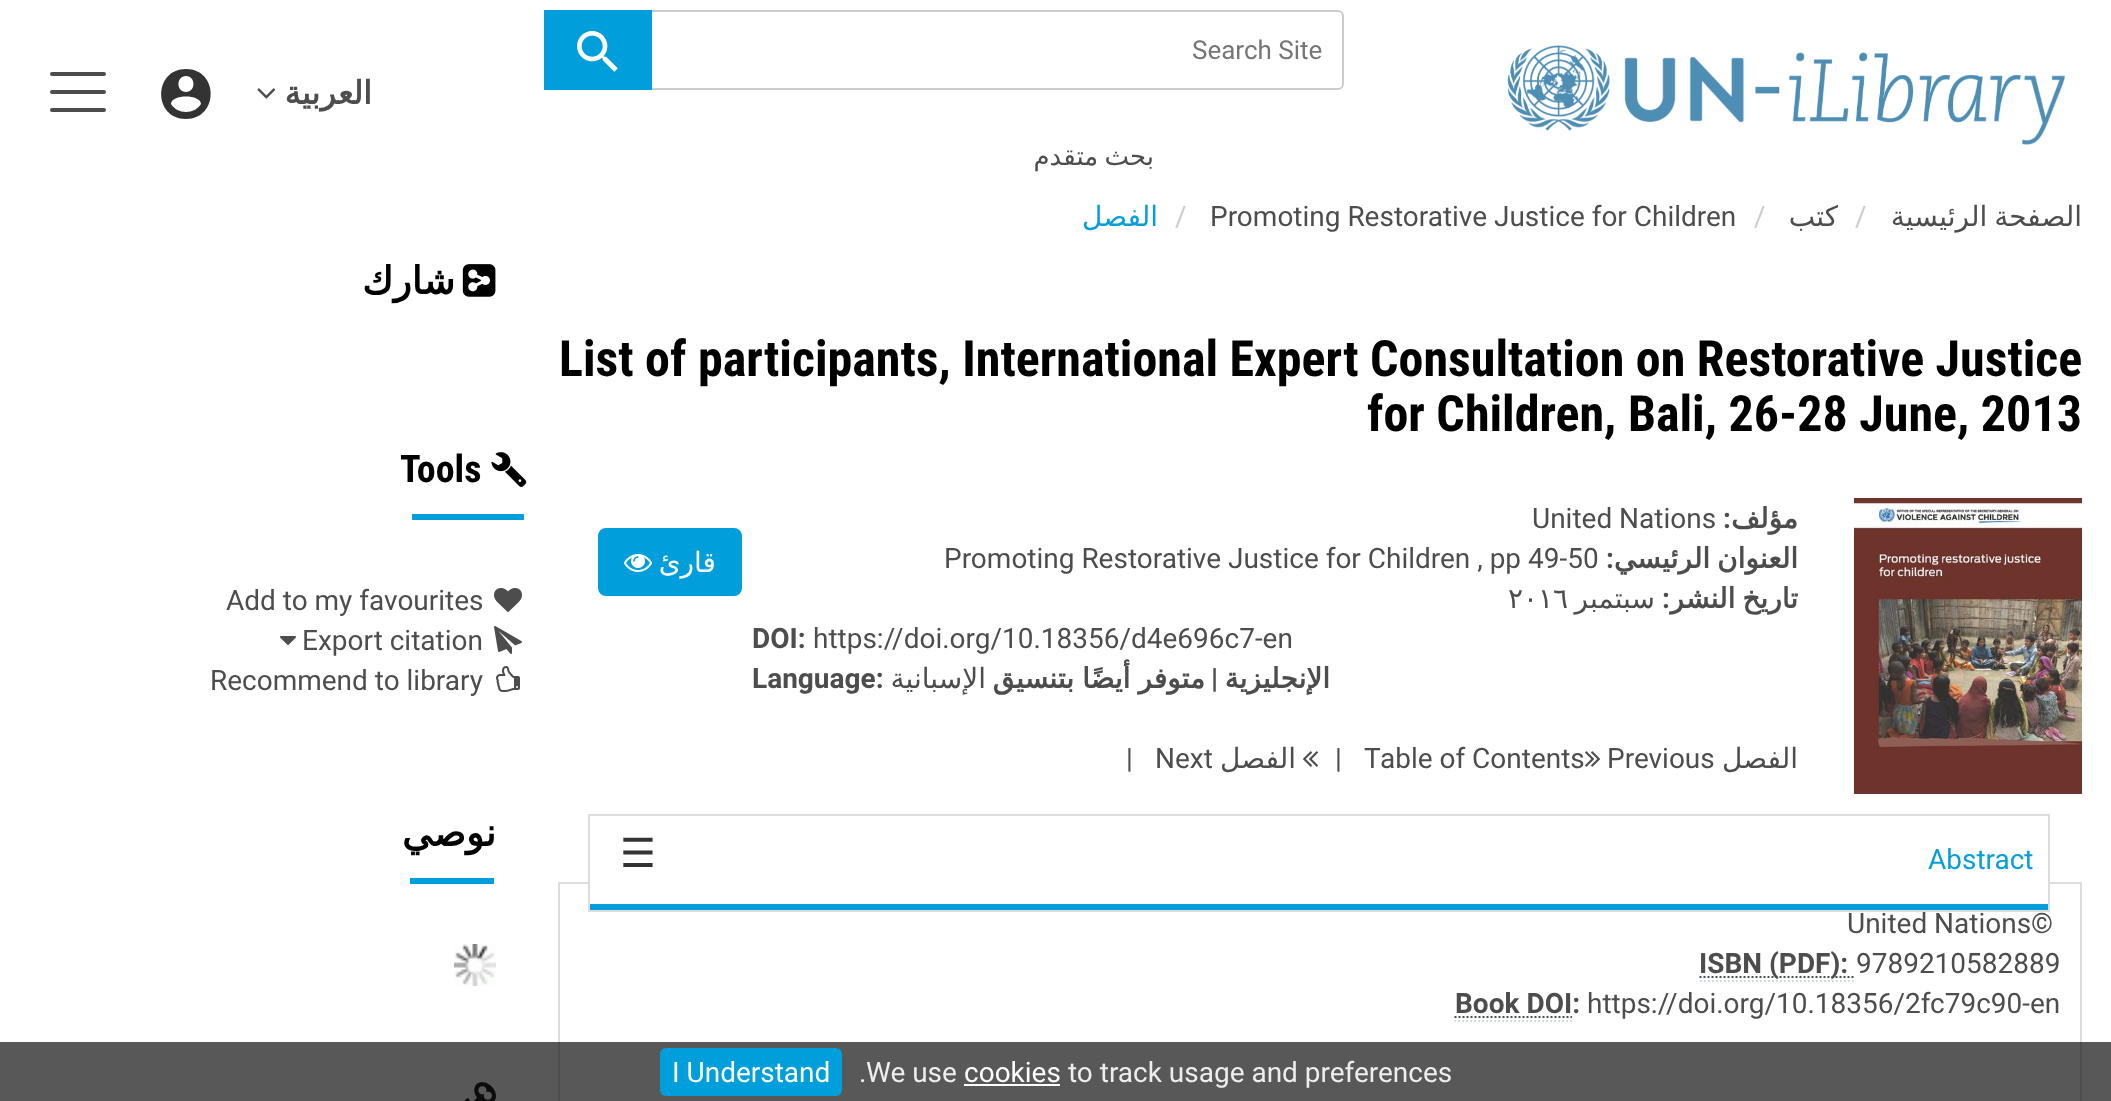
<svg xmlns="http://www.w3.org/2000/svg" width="2111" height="1101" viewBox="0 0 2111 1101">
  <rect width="100%" height="100%" fill="#fff"/>
  <rect x="50" y="72" width="56" height="4" rx="2" fill="#4d4d4d"/>
  <rect x="50" y="90" width="56" height="4" rx="2" fill="#4d4d4d"/>
  <rect x="50" y="108" width="56" height="4" rx="2" fill="#4d4d4d"/>
  <path d="M186 69C153 69 153 119 186 119C219 119 219 69 186 69ZM186 76C196 76 196 92 186 92C176 92 176 76 186 76ZM186 112C180 112 174 109 171 104C171 94 201 94 201 104C198 109 192 112 186 112Z" fill="#333"/>
  <image x="257" y="88" width="19" height="11" href="img/1.png"/>
  <rect x="545" y="11" width="798" height="78" rx="5" fill="none" stroke="#ccc" stroke-width="2"/>
  <path d="M544 10h108v80H544z" fill="#009edb"/>
  <image x="577" y="31" width="41" height="41" href="img/2.png"/>
  <image x="1507" y="45" width="558" height="100" href="img/3.png"/>
  <image x="462" y="264" width="34" height="33" href="img/4.png"/>
  <image x="491" y="452" width="36" height="35" href="img/5.png"/>
  <path d="M412 514h112v6H412z" fill="#009edb"/>
  <image x="494" y="588" width="28" height="24" href="img/6.png"/>
  <image x="280" y="636" width="16" height="9" href="img/7.png"/>
  <image x="494" y="626" width="28" height="28" href="img/8.png"/>
  <image x="496" y="666" width="24" height="26" href="img/9.png"/>
  <rect x="599" y="529" width="142" height="66" rx="7" fill="#009edb" stroke="#009edb" stroke-width="2"/>
  <image x="624" y="554" width="28" height="18" href="img/10.png"/>
  <image x="1303" y="751" width="15" height="16" href="img/11.png"/>
  <image x="1585" y="751" width="15" height="16" href="img/12.png"/>
  <image x="1854" y="498" width="228" height="296" href="img/13.png"/>
  <path d="M559 883h1522v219H559z" fill="none" stroke="#ddd" stroke-width="2"/>
  <path d="M590 882h1458v2H590z" fill="#fff"/>
  <path d="M589 815h1460v96H589z" fill="none" stroke="#ddd" stroke-width="2"/>
  <path d="M590 904h1458v6H590z" fill="#069edb"/>
  <path d="M1700 981H1856" fill="none" stroke="#d5dfec" stroke-width="2" stroke-dasharray="2 2"/>
  <path d="M1699.5 977H1855.5" fill="none" stroke="#4d4d4d" stroke-width="2" stroke-dasharray="2 2"/>
  <path d="M1454 1021H1572" fill="none" stroke="#d5dfec" stroke-width="2" stroke-dasharray="2 2"/>
  <path d="M1454.5 1017H1572" fill="none" stroke="#4d4d4d" stroke-width="2" stroke-dasharray="2 2"/>
  <path d="M410 878h84v6H410z" fill="#009edb"/>
  <image x="454" y="944" width="42" height="42" href="img/14.png"/>
  <image x="464" y="1082" width="32" height="19" href="img/15.png"/>
  <path d="M0 1042h2111v59H0z" fill="#111111b3"/>
  <rect x="660" y="1048" width="182" height="48" rx="6" fill="#009edb"/>
  <path d="M964 1084h96v2H964z" fill="#fff"/>
  <text x="372" y="104" font-family="DejaVu Sans" font-size="32" font-weight="bold" direction="rtl" fill="#4d4d4d">العربية</text>
  <text x="1192" y="59" font-family="Roboto" font-size="26" fill="#757575">Search Site</text>
  <text x="1154" y="165" word-spacing="-2" font-family="DejaVu Sans" font-size="26" direction="rtl" fill="#4d4d4d">بحث متقدم</text>
  <text x="455" y="294" font-family="DejaVu Sans" font-size="38" font-weight="bold" direction="rtl" fill="#000">شارك</text>
  <text x="400" y="482" font-family="Roboto Condensed" font-size="38" font-weight="bold" fill="#000">Tools</text>
  <g font-family="Roboto" font-size="28" fill="#4d4d4d">
    <text x="226" y="610">Add to my favourites</text>
    <text x="302" y="650">Export citation</text>
    <text x="210" y="690">Recommend to library</text>
  </g>
  <text x="1158" y="226" font-family="DejaVu Sans" font-size="28" direction="rtl" fill="#069edb">الفصل</text>
  <text x="1175" y="226" font-family="Roboto" font-size="28" fill="#ccc">/</text>
  <text x="1210" y="226" font-family="Roboto" font-size="28" fill="#4d4d4d">Promoting Restorative Justice for Children</text>
  <text x="1754" y="226" font-family="Roboto" font-size="28" fill="#ccc">/</text>
  <text x="1838" y="226" font-family="DejaVu Sans" font-size="28" direction="rtl" fill="#4d4d4d">كتب</text>
  <text x="1855" y="226" font-family="Roboto" font-size="28" fill="#ccc">/</text>
  <text x="2082" y="226" word-spacing="-2" font-family="DejaVu Sans" font-size="28" direction="rtl" fill="#4d4d4d">الصفحة الرئيسية</text>
  <g font-family="Roboto Condensed" font-size="50" font-weight="bold" fill="#000">
    <text x="559" y="376">List of participants, International Expert Consultation on Restorative Justice</text>
    <text x="1367" y="431">for Children, Bali, 26-28 June, 2013</text>
  </g>
  <text x="716" y="572" font-family="DejaVu Sans" font-size="28" direction="rtl" fill="#fff">قارئ</text>
  <text x="1532" y="528" font-family="Roboto" font-size="28" fill="#4d4d4d">United Nations</text>
  <text x="1731" y="528" font-family="Roboto" font-size="28" font-weight="bold" direction="rtl" fill="#4d4d4d">:</text>
  <text x="1798" y="528" font-family="DejaVu Sans" font-size="28" font-weight="bold" direction="rtl" fill="#4d4d4d">مؤلف</text>
  <text x="944" y="568" font-family="Roboto" font-size="28" fill="#4d4d4d">Promoting Restorative Justice for Children , pp 49-50</text>
  <text x="1614" y="568" font-family="Roboto" font-size="28" font-weight="bold" direction="rtl" fill="#4d4d4d">:</text>
  <text x="1798" y="568" word-spacing="-2" font-family="DejaVu Sans" font-size="28" font-weight="bold" direction="rtl" fill="#4d4d4d">العنوان الرئيسي</text>
  <text x="1508" y="608" font-family="DejaVu Sans" font-size="28" fill="#4d4d4d">٢٠١٦</text>
  <text x="1655" y="608" font-family="DejaVu Sans" font-size="28" direction="rtl" fill="#4d4d4d">سبتمبر</text>
  <text x="1670" y="608" font-family="Roboto" font-size="28" font-weight="bold" direction="rtl" fill="#4d4d4d">:</text>
  <text x="1798" y="608" word-spacing="-2" font-family="DejaVu Sans" font-size="28" font-weight="bold" direction="rtl" fill="#4d4d4d">تاريخ النشر</text>
  <text x="752" y="648" font-family="Roboto" font-size="28" font-weight="bold" fill="#4d4d4d">DOI:</text>
  <text x="813" y="648" font-family="Roboto" font-size="28" fill="#4d4d4d">https://doi.org/10.18356/d4e696c7-en</text>
  <text x="752" y="688" font-family="Roboto" font-size="28" font-weight="bold" fill="#4d4d4d">Language:</text>
  <text x="986" y="688" font-family="DejaVu Sans" font-size="28" direction="rtl" fill="#4d4d4d">الإسبانية</text>
  <text x="1205" y="688" word-spacing="-1" font-family="DejaVu Sans" font-size="28" font-weight="bold" direction="rtl" fill="#4d4d4d">متوفر أيضًا بتنسيق</text>
  <text x="1218" y="688" font-family="Roboto" font-size="28" font-weight="bold" direction="rtl" fill="#4d4d4d">|</text>
  <text x="1330" y="688" font-family="DejaVu Sans" font-size="28" font-weight="bold" direction="rtl" fill="#4d4d4d">الإنجليزية</text>
  <g font-family="Roboto" font-size="28" fill="#4d4d4d">
    <text x="1126" y="768">|</text>
    <text x="1155" y="768">Next</text>
  </g>
  <text x="1296" y="768" font-family="DejaVu Sans" font-size="28" direction="rtl" fill="#4d4d4d">الفصل</text>
  <g font-family="Roboto" font-size="28" fill="#4d4d4d">
    <text x="1335" y="768">|</text>
    <text x="1364" y="768">T</text>
    <text x="1380" y="768">able of Contents</text>
    <text x="1607" y="768">Previous</text>
  </g>
  <text x="1798" y="768" font-family="DejaVu Sans" font-size="28" direction="rtl" fill="#4d4d4d">الفصل</text>
  <text x="620" y="867" font-family="DejaVu Sans" font-size="40" fill="#333">☰</text>
  <text x="1928" y="869" font-family="Roboto" font-size="28" fill="#069edb">Abstract</text>
  <text x="1847" y="933" font-family="Roboto" font-size="28" fill="#4d4d4d">United Nations©</text>
  <text x="1699" y="973" font-family="Roboto" font-size="28" font-weight="bold" fill="#4d4d4d">ISBN (PDF):</text>
  <text x="1856" y="973" font-family="Roboto" font-size="28" fill="#4d4d4d">9789210582889</text>
  <text x="1455" y="1013" font-family="Roboto" font-size="28" font-weight="bold" fill="#4d4d4d">Book DOI:</text>
  <text x="1587" y="1013" font-family="Roboto" font-size="28" fill="#4d4d4d">https://doi.org/10.18356/2fc79c90-en</text>
  <text x="496" y="846" font-family="DejaVu Sans" font-size="38" font-weight="bold" direction="rtl" fill="#000">نوصي</text>
  <text x="672" y="1082" font-family="Roboto" font-size="28" fill="#fff">I Understand</text>
  <g font-family="Roboto" font-size="28" fill="#eee">
    <text x="859" y="1082">.</text>
    <text x="866" y="1082">We use</text>
  </g>
  <text x="964" y="1082" font-family="Roboto" font-size="28" fill="#fff">cookies</text>
  <text x="1068" y="1082" font-family="Roboto" font-size="28" fill="#eee">to track usage and preferences</text>
</svg>
